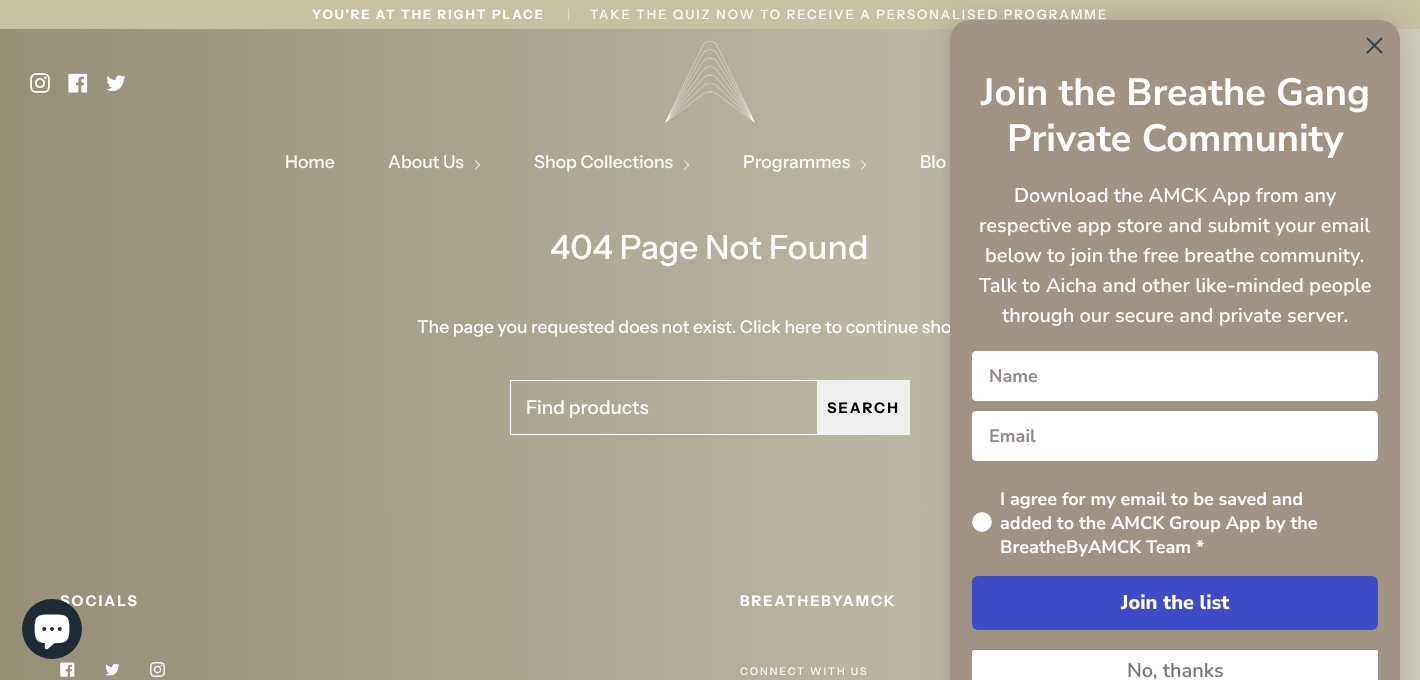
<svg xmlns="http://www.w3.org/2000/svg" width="1420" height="680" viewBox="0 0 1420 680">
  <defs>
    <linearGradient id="g1" gradientUnits="userSpaceOnUse" x1="0" y1="526" x2="1420" y2="526"><stop offset="0" stop-color="#958f76"/><stop offset="1" stop-color="#d0cdbd"/></linearGradient>
    <clipPath id="clip1"><rect x="972" y="512" width="20" height="20" rx="10"/></clipPath>
  </defs>
  <rect width="100%" height="100%" fill="#fff"/>
  <path d="M0 29h1420v651H0z" fill="url(#g1)"/>
  <path d="M0 0h1420v29H0z" fill="#c7c1a4"/>
  <image x="30" y="73" width="20" height="20" href="img/1.png"/>
  <image x="68" y="73" width="20" height="20" href="img/2.png"/>
  <image x="106" y="75" width="20" height="16" href="img/3.png"/>
  <image x="665" y="41" width="90" height="82" href="img/4.png"/>
  <image x="475" y="160" width="5" height="10" href="img/5.png"/>
  <image x="684" y="160" width="5" height="10" href="img/6.png"/>
  <image x="861" y="160" width="5" height="10" href="img/7.png"/>
  <path d="M510.5 380.5h399v54H510.5z" fill="none" stroke="#fff"/>
  <path d="M817 380h93v55H817z" fill="#efefef"/>
  <rect x="950" y="20" width="450" height="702" rx="20" fill="#00000026" filter="blur(15px)"/>
  <image x="60" y="662" width="15" height="15" href="img/9.png"/>
  <image x="105" y="663" width="15" height="13" href="img/10.png"/>
  <image x="150" y="662" width="15" height="15" href="img/11.png"/>
  <text x="312" y="19" font-family="Instrument Sans" font-size="12.95" font-weight="bold" letter-spacing="2" fill="#fff">YOU'RE AT THE RIGHT PLACE</text>
  <text x="567" y="19" font-family="Instrument Sans" font-size="12.95" font-weight="500" letter-spacing="2" fill="#e3e0d2">|</text>
  <text x="590" y="19" font-family="Instrument Sans" font-size="12.95" font-weight="500" letter-spacing="2" fill="#fff">TAKE THE QUIZ NOW TO RECEIVE A PERSONALISED PROGRAMME</text>
  <g font-family="Instrument Sans" font-size="17.65" font-weight="500" fill="#fff">
    <text x="285" y="168">Home</text>
    <text x="388" y="168">About Us</text>
    <text x="534" y="168">Shop Collections</text>
    <text x="743" y="168">Programmes</text>
    <text x="920" y="168">Blo</text>
  </g>
  <text x="550" y="259" font-family="Instrument Sans" font-size="33.5" font-weight="500" fill="#fff">404 Page Not Found</text>
  <text x="417" y="333" font-family="Instrument Sans" font-size="17.65" font-weight="500" fill="#fff">The page you requested does not exist. Click here to continue sho</text>
  <text x="526" y="414" font-family="Instrument Sans" font-size="19" font-weight="500" fill="#fff">Find products</text>
  <text x="827" y="413" font-family="Instrument Sans" font-size="14.75" font-weight="bold" letter-spacing="2" fill="#000">SEARCH</text>
  <rect x="950" y="20" width="450" height="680" rx="20" fill="#a19384"/>
  <path d="M1367.5 38.5L1381.5 52.5M1367.5 52.5L1381.5 38.5Z" fill="none" stroke="#373f47" stroke-width="1.8" stroke-linecap="round" stroke-linejoin="round"/>
  <g font-family="Nunito Sans" font-size="38" font-weight="bold" fill="#fff">
    <text x="981" y="105">Join the Breathe Gang</text>
    <text x="1007" y="151">Private Community</text>
  </g>
  <g font-family="Nunito Sans" font-size="20" font-weight="600" fill="#fff">
    <text x="1014" y="202">Download the AMCK App from any</text>
    <text x="979" y="232">respective app store and submit your email</text>
    <text x="985" y="262">below to join the free breathe community.</text>
    <text x="979" y="292">Talk to Aicha and other like-minded people</text>
    <text x="1002" y="322">through our secure and private server.</text>
  </g>
  <rect x="972.5" y="351.5" width="405" height="49" rx="3.5" fill="#fff" stroke="#fff"/>
  <text x="989" y="382" font-family="Nunito Sans" font-size="18" font-weight="bold" fill="#928888">Name</text>
  <rect x="972.5" y="411.5" width="405" height="49" rx="3.5" fill="#fff" stroke="#fff"/>
  <text x="989" y="442" font-family="Nunito Sans" font-size="18" font-weight="bold" fill="#928888">Email</text>
  <circle cx="982" cy="522" r="9.5" fill="#fff"/>
  <g clip-path="url(#clip1)">
    <circle cx="982" cy="522" r="9.5" fill="none" stroke="#fff"/>
  </g>
  <g font-family="Nunito Sans" font-size="18" font-weight="bold" fill="#fff">
    <text x="1000" y="505">I agree for my email to be saved and</text>
    <text x="1000" y="529">added to the AMCK Group App by the</text>
    <text x="1000" y="553">BreatheByAMCK Team *</text>
  </g>
  <rect x="972" y="576" width="406" height="54" rx="6" fill="#3d4bc7"/>
  <text x="1121" y="609" font-family="Nunito Sans" font-size="20" font-weight="800" fill="#fff">Join the list</text>
  <rect x="972" y="650" width="406" height="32" rx="2" fill="#fff"/>
  <text x="1127" y="677" font-family="Nunito Sans" font-size="20" font-weight="600" fill="#757575">No, thanks</text>
  <text x="60" y="606" font-family="Instrument Sans" font-size="14.75" font-weight="bold" letter-spacing="2" fill="#fff">SOCIALS</text>
  <circle cx="52" cy="629" r="30" fill="#202a36"/>
  <image x="34" y="614" width="36" height="36" href="img/8.png"/>
  <text x="740" y="606" font-family="Instrument Sans" font-size="14.75" font-weight="bold" letter-spacing="2" fill="#fff">BREATHEBYAMCK</text>
  <text x="740" y="675" font-family="Instrument Sans" font-size="10.5" font-weight="500" letter-spacing="2" fill="#fff">CONNECT WITH US</text>
</svg>
